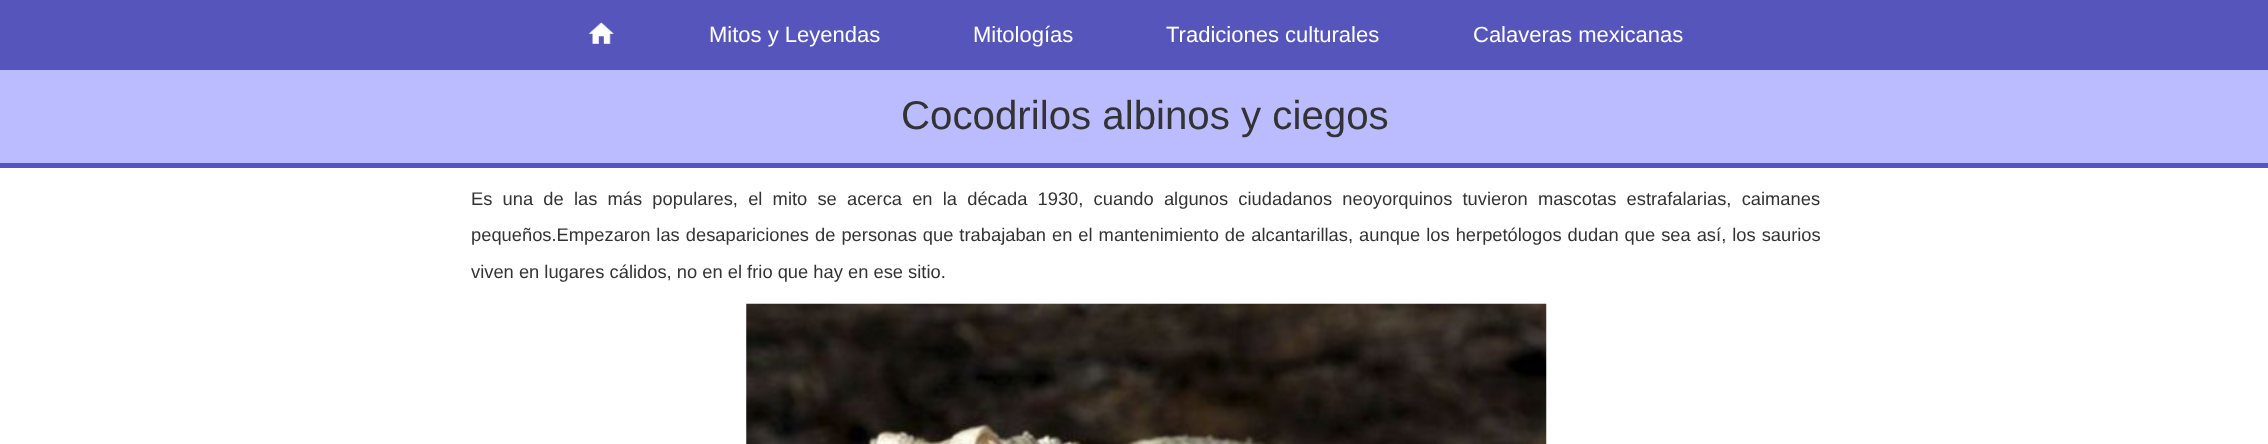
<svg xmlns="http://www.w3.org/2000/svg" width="2268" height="444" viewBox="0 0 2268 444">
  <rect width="100%" height="100%" fill="#fff"/>
  <path d="M0 0h2268v70H0z" fill="#55b"/>
  <image x="588" y="22" width="26" height="22" href="img/1.png"/>
  <path d="M0 70h2268v93H0z" fill="#bbf"/>
  <path d="M0 163h2268v5H0z" fill="#55b"/>
  <image x="746" y="303" width="801" height="141" href="img/2.png"/>
  <g font-family="Liberation Sans" font-size="22" fill="#fff">
    <text x="709" y="42">Mitos y Leyendas</text>
    <text x="973" y="42">Mitologías</text>
    <text x="1166" y="42">Tradiciones culturales</text>
    <text x="1473" y="42">Calaveras mexicanas</text>
  </g>
  <text x="901" y="129" font-family="Liberation Sans" font-size="40.25" fill="#333">Cocodrilos albinos y ciegos</text>
  <g font-family="Liberation Sans" font-size="18.33" fill="#333">
    <text x="471" y="205" word-spacing="5.1">Es una de las más populares, el mito se acerca en la década 1930, cuando algunos ciudadanos neoyorquinos tuvieron mascotas estrafalarias, caimanes</text>
    <text x="471" y="241" word-spacing="0.9">pequeños.Empezaron las desapariciones de personas que trabajaban en el mantenimiento de alcantarillas, aunque los herpetólogos dudan que sea así, los saurios</text>
    <text x="471" y="278">viven en lugares cálidos, no en el frio que hay en ese sitio.</text>
  </g>
</svg>
